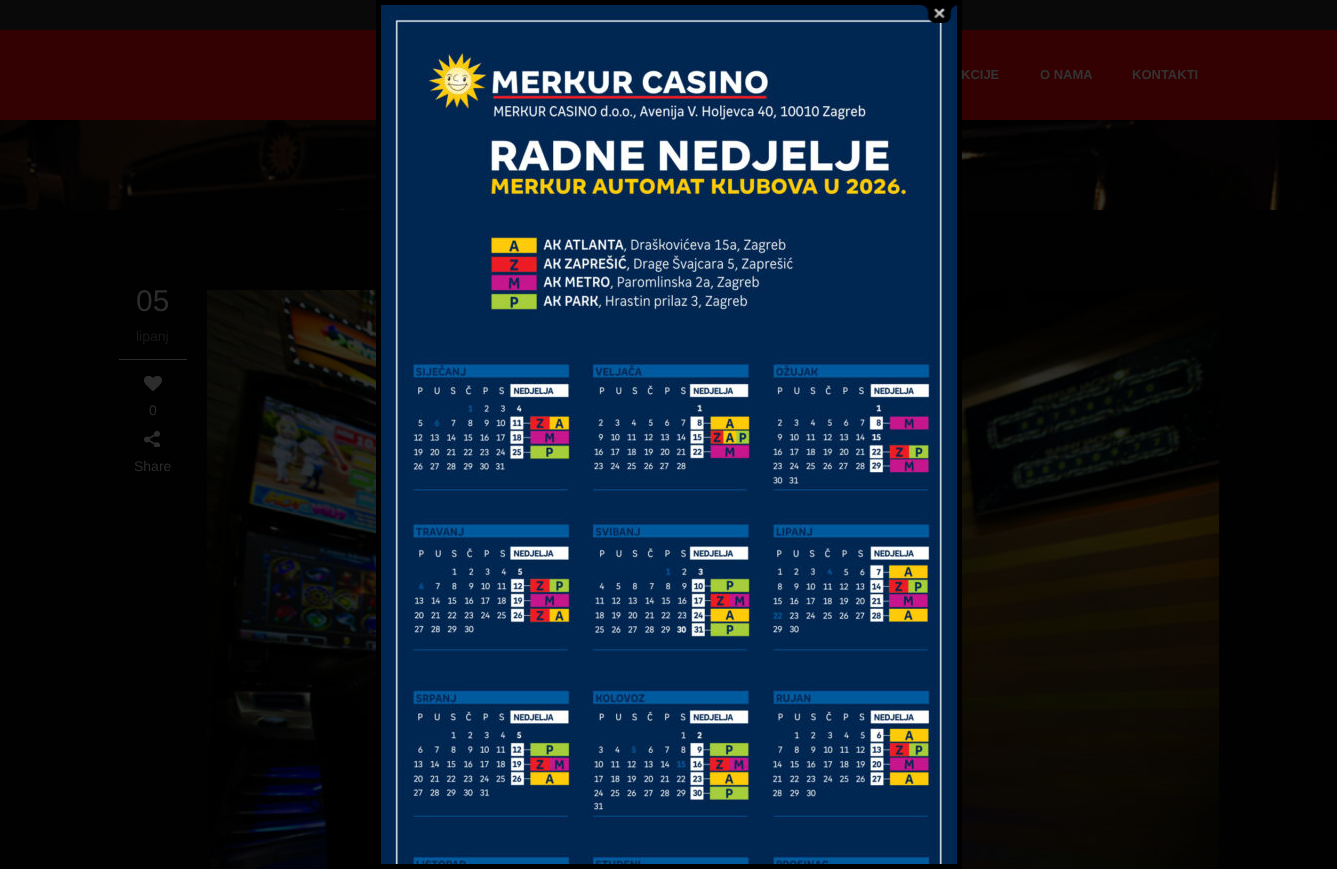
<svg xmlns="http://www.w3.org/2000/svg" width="1337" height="869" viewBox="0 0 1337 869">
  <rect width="100%" height="100%" fill="#090909"/>
  <path d="M0 30h1337v90H0z" fill="#330101"/>
  <path d="M0 210h1337v659H0z" fill="#010101"/>
  <image x="0" y="120" width="1337" height="90" href="img/3.png"/>
  <image x="207" y="290" width="1012" height="579" href="img/6.png"/>
  <path d="M378.5 2.5h581v864H378.5z" fill="none" stroke="#000" stroke-width="5"/>
  <image x="381" y="5" width="576" height="859" href="img/1.png"/>
  <image x="921" y="5" width="36" height="18" href="img/2.png"/>
  <path d="M119 359h68v1H119z" fill="#2c2c2c"/>
  <image x="144" y="375" width="18" height="17" href="img/4.png"/>
  <image x="144" y="431" width="16" height="16" href="img/5.png"/>
  <g font-family="Liberation Sans" font-size="13" font-weight="bold" fill="#333">
    <text x="961" y="79">KCIJE</text>
    <text x="1040" y="79">O NAMA</text>
    <text x="1132" y="79">KONTAKTI</text>
  </g>
  <text x="136" y="311" font-family="Liberation Sans" font-size="30" fill="#2c2c2c">05</text>
  <text x="136" y="341" font-family="Liberation Sans" font-size="14" fill="#18191a">lipanj</text>
  <g font-family="Liberation Sans" font-size="14" fill="#2c2c2c">
    <text x="149" y="415">0</text>
    <text x="134" y="471">Share</text>
  </g>
</svg>
